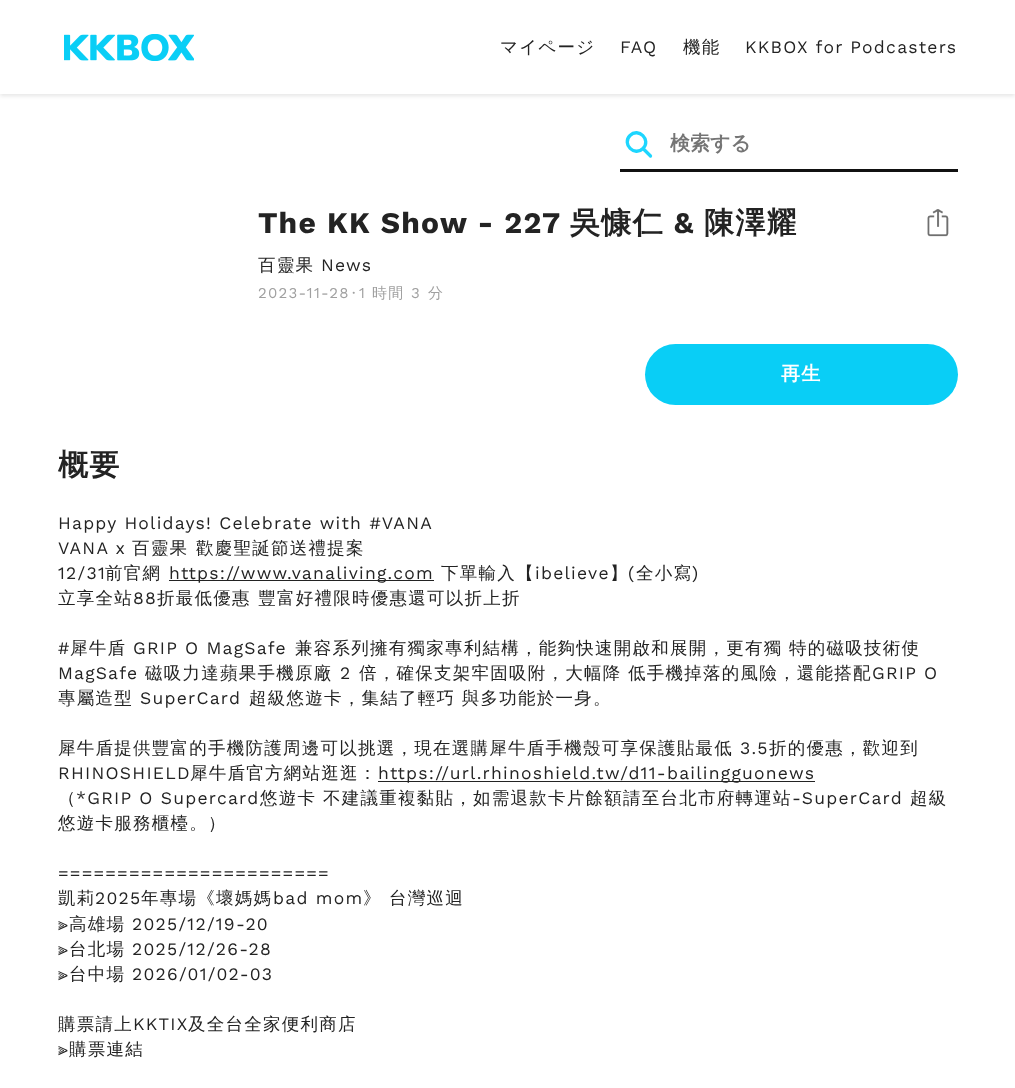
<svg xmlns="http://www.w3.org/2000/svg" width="1015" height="1088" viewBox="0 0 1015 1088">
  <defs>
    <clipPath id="clip1"><path d="M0 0H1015V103H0ZM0 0H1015V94H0Z" clip-rule="evenodd"/></clipPath>
  </defs>
  <rect width="100%" height="100%" fill="#fff"/>
  <g clip-path="url(#clip1)">
    <path d="M0 3h1015v93H0z" fill="#0000001a" filter="blur(2px)"/>
  </g>
  <image x="64" y="34" width="130" height="27" href="img/1.png"/>
  <path d="M620 169h338v3H620z" fill="#111"/>
  <path d="M630 135.5C638.5 127 651.5 140 643 148.5C634.5 157 621.5 144 630 135.5ZM643.5 149L650.5 156" fill="none" stroke="#1dd6ff" stroke-width="3.3" stroke-linecap="round" stroke-linejoin="round"/>
  <image x="927" y="209" width="22" height="28" href="img/2.png"/>
  <rect x="645" y="344" width="313" height="61" rx="30.5" fill="#09cef6"/>
  <path d="M169 580h265v1H169z" fill="#232323"/>
  <path d="M378 781h437v1H378z" fill="#232323"/>
  <text x="500" y="53" font-family="WenQuanYi Zen Hei" font-size="17.5" font-weight="500" letter-spacing="1.25" fill="#232323">マイページ</text>
  <text x="620" y="53" font-family="Work Sans" font-size="17.5" letter-spacing="1.25" fill="#232323">FAQ</text>
  <text x="683" y="53" font-family="WenQuanYi Zen Hei" font-size="17.5" font-weight="500" letter-spacing="1.25" fill="#232323">機能</text>
  <text x="745" y="53" font-family="Work Sans" font-size="17.5" letter-spacing="1.25" fill="#232323">KKBOX for Podcasters</text>
  <text x="670" y="150" font-family="WenQuanYi Zen Hei" font-size="20" font-weight="bold" fill="#757575">検索する</text>
  <text x="258" y="233" font-family="Work Sans" font-size="30" font-weight="bold" letter-spacing="1.25" fill="#232323">The KK Show - 227</text>
  <text x="570" y="233" font-family="WenQuanYi Zen Hei" font-size="30" font-weight="bold" letter-spacing="1.25" fill="#232323">吳慷仁</text>
  <text x="674" y="233" font-family="Work Sans" font-size="30" font-weight="bold" letter-spacing="1.25" fill="#232323">&amp;</text>
  <text x="704" y="233" font-family="WenQuanYi Zen Hei" font-size="30" font-weight="bold" letter-spacing="1.25" fill="#232323">陳澤耀</text>
  <text x="258" y="271" font-family="WenQuanYi Zen Hei" font-size="17.5" font-weight="500" letter-spacing="1.25" fill="#232323">百靈果</text>
  <text x="321" y="271" font-family="Work Sans" font-size="17.5" letter-spacing="1.25" fill="#232323">News</text>
  <g font-family="Work Sans" font-size="15" letter-spacing="1.25" fill="#a0a0a0">
    <text x="258" y="298">2023-11-28</text>
    <text x="352" y="298">·</text>
    <text x="359" y="298">1</text>
  </g>
  <text x="372" y="298" font-family="WenQuanYi Zen Hei" font-size="15" font-weight="500" letter-spacing="1.25" fill="#a0a0a0">時間</text>
  <text x="411" y="298" font-family="Work Sans" font-size="15" letter-spacing="1.25" fill="#a0a0a0">3</text>
  <text x="428" y="298" font-family="WenQuanYi Zen Hei" font-size="15" font-weight="500" letter-spacing="1.25" fill="#a0a0a0">分</text>
  <text x="781" y="380" font-family="WenQuanYi Zen Hei" font-size="19" font-weight="bold" letter-spacing="1.25" fill="#fff">再生</text>
  <text x="58" y="475" font-family="WenQuanYi Zen Hei" font-size="30" font-weight="bold" letter-spacing="1.25" fill="#232323">概要</text>
  <g font-family="Work Sans" font-size="17.5" letter-spacing="1.25" fill="#232323">
    <text x="58" y="529">Happy Holidays! Celebrate with #VANA</text>
    <text x="58" y="554">VANA x</text>
  </g>
  <g font-family="WenQuanYi Zen Hei" font-size="17.5" font-weight="500" letter-spacing="1.25" fill="#232323">
    <text x="132" y="554">百靈果</text>
    <text x="196" y="554">歡慶聖誕節送禮提案</text>
  </g>
  <text x="58" y="579" font-family="Work Sans" font-size="17.5" letter-spacing="1.25" fill="#232323">12/31</text>
  <text x="105" y="579" font-family="WenQuanYi Zen Hei" font-size="17.5" font-weight="500" letter-spacing="1.25" fill="#232323">前官網</text>
  <text x="169" y="579" font-family="Work Sans" font-size="17.5" letter-spacing="1.25" fill="#232323">https://www.vanaliving.com</text>
  <text x="441" y="579" font-family="WenQuanYi Zen Hei" font-size="17.5" font-weight="500" letter-spacing="1.25" fill="#232323">下單輸入【</text>
  <text x="535" y="579" font-family="Work Sans" font-size="17.5" letter-spacing="1.25" fill="#232323">ibelieve</text>
  <text x="610" y="579" font-family="WenQuanYi Zen Hei" font-size="17.5" font-weight="500" letter-spacing="1.25" fill="#232323">】</text>
  <text x="628" y="579" font-family="Work Sans" font-size="17.5" letter-spacing="1.25" fill="#232323">(</text>
  <text x="636" y="579" font-family="WenQuanYi Zen Hei" font-size="17.5" font-weight="500" letter-spacing="1.25" fill="#232323">全小寫</text>
  <text x="692" y="579" font-family="Work Sans" font-size="17.5" letter-spacing="1.25" fill="#232323">)</text>
  <text x="58" y="604" font-family="WenQuanYi Zen Hei" font-size="17.5" font-weight="500" letter-spacing="1.25" fill="#232323">立享全站</text>
  <text x="133" y="604" font-family="Work Sans" font-size="17.5" letter-spacing="1.25" fill="#232323">88</text>
  <text x="157" y="604" word-spacing="1" font-family="WenQuanYi Zen Hei" font-size="17.5" font-weight="500" letter-spacing="1.25" fill="#232323">折最低優惠 豐富好禮限時優惠還可以折上折</text>
  <text x="58" y="654" font-family="Work Sans" font-size="17.5" letter-spacing="1.25" fill="#232323">#</text>
  <text x="70" y="654" font-family="WenQuanYi Zen Hei" font-size="17.5" font-weight="500" letter-spacing="1.25" fill="#232323">犀牛盾</text>
  <text x="133" y="654" font-family="Work Sans" font-size="17.5" letter-spacing="1.25" fill="#232323">GRIP O MagSafe</text>
  <g font-family="WenQuanYi Zen Hei" font-size="17.5" font-weight="500" letter-spacing="1.25" fill="#232323">
    <text x="295" y="654">兼容系列擁有獨家專利結構，能夠快速開啟和展開，更有獨</text>
    <text x="789" y="654">特的磁吸技術使</text>
  </g>
  <text x="58" y="679" font-family="Work Sans" font-size="17.5" letter-spacing="1.25" fill="#232323">MagSafe</text>
  <text x="145" y="679" font-family="WenQuanYi Zen Hei" font-size="17.5" font-weight="500" letter-spacing="1.25" fill="#232323">磁吸力達蘋果手機原廠</text>
  <text x="340" y="679" font-family="Work Sans" font-size="17.5" letter-spacing="1.25" fill="#232323">2</text>
  <g font-family="WenQuanYi Zen Hei" font-size="17.5" font-weight="500" letter-spacing="1.25" fill="#232323">
    <text x="359" y="679">倍，確保支架牢固吸附，大幅降</text>
    <text x="628" y="679">低手機掉落的風險，還能搭配</text>
  </g>
  <text x="872" y="679" font-family="Work Sans" font-size="17.5" letter-spacing="1.25" fill="#232323">GRIP O</text>
  <text x="58" y="704" font-family="WenQuanYi Zen Hei" font-size="17.5" font-weight="500" letter-spacing="1.25" fill="#232323">專屬造型</text>
  <text x="140" y="704" font-family="Work Sans" font-size="17.5" letter-spacing="1.25" fill="#232323">SuperCard</text>
  <g font-family="WenQuanYi Zen Hei" font-size="17.5" font-weight="500" letter-spacing="1.25" fill="#232323">
    <text x="249" y="704">超級悠遊卡，集結了輕巧 與多功能於一身。</text>
    <text x="58" y="754">犀牛盾提供豐富的手機防護周邊可以挑選，現在選購犀牛盾手機殼可享保護貼最低</text>
  </g>
  <text x="740" y="754" font-family="Work Sans" font-size="17.5" letter-spacing="1.25" fill="#232323">3.5</text>
  <text x="769" y="754" font-family="WenQuanYi Zen Hei" font-size="17.5" font-weight="500" letter-spacing="1.25" fill="#232323">折的優惠，歡迎到</text>
  <text x="58" y="779" font-family="Work Sans" font-size="17.5" letter-spacing="1.25" fill="#232323">RHINOSHIELD</text>
  <text x="190" y="779" font-family="WenQuanYi Zen Hei" font-size="17.5" font-weight="500" letter-spacing="1.25" fill="#232323">犀牛盾官方網站逛逛：</text>
  <text x="378" y="779" font-family="Work Sans" font-size="17.5" letter-spacing="1.25" fill="#232323">https://url.rhinoshield.tw/d11-bailingguonews</text>
  <text x="58" y="804" font-family="WenQuanYi Zen Hei" font-size="17.5" font-weight="500" letter-spacing="1.25" fill="#232323">（</text>
  <text x="76" y="804" font-family="Work Sans" font-size="17.5" letter-spacing="1.25" fill="#232323">*GRIP O Supercard</text>
  <g font-family="WenQuanYi Zen Hei" font-size="17.5" font-weight="500" letter-spacing="1.25" fill="#232323">
    <text x="260" y="804">悠遊卡</text>
    <text x="323" y="804">不建議重複黏貼，如需退款卡片餘額請至台北市府轉運站</text>
  </g>
  <text x="792" y="804" font-family="Work Sans" font-size="17.5" letter-spacing="1.25" fill="#232323">-SuperCard</text>
  <g font-family="WenQuanYi Zen Hei" font-size="17.5" font-weight="500" letter-spacing="1.25" fill="#232323">
    <text x="910" y="804">超級</text>
    <text x="58" y="829">悠遊卡服務櫃檯。）</text>
  </g>
  <text x="58" y="879" font-family="Work Sans" font-size="17.5" letter-spacing="1.25" fill="#232323">=======================</text>
  <text x="58" y="904" font-family="WenQuanYi Zen Hei" font-size="17.5" font-weight="500" letter-spacing="1.25" fill="#232323">凱莉</text>
  <text x="95" y="904" font-family="Work Sans" font-size="17.5" letter-spacing="1.25" fill="#232323">2025</text>
  <text x="141" y="904" font-family="WenQuanYi Zen Hei" font-size="17.5" font-weight="500" letter-spacing="1.25" fill="#232323">年專場《壞媽媽</text>
  <text x="273" y="904" font-family="Work Sans" font-size="17.5" letter-spacing="1.25" fill="#232323">bad mom</text>
  <g font-family="WenQuanYi Zen Hei" font-size="17.5" font-weight="500" letter-spacing="1.25" fill="#232323">
    <text x="363" y="904">》</text>
    <text x="389" y="904">台灣巡迴</text>
  </g>
  <text x="58" y="930" font-family="FreeSerif" font-size="17.5" letter-spacing="1.25" fill="#232323">⫸</text>
  <text x="69" y="930" font-family="WenQuanYi Zen Hei" font-size="17.5" font-weight="500" letter-spacing="1.25" fill="#232323">高雄場</text>
  <text x="132" y="930" font-family="Work Sans" font-size="17.5" letter-spacing="1.25" fill="#232323">2025/12/19-20</text>
  <text x="58" y="955" font-family="FreeSerif" font-size="17.5" letter-spacing="1.25" fill="#232323">⫸</text>
  <text x="69" y="955" font-family="WenQuanYi Zen Hei" font-size="17.5" font-weight="500" letter-spacing="1.25" fill="#232323">台北場</text>
  <text x="132" y="955" font-family="Work Sans" font-size="17.5" letter-spacing="1.25" fill="#232323">2025/12/26-28</text>
  <text x="58" y="980" font-family="FreeSerif" font-size="17.5" letter-spacing="1.25" fill="#232323">⫸</text>
  <text x="69" y="980" font-family="WenQuanYi Zen Hei" font-size="17.5" font-weight="500" letter-spacing="1.25" fill="#232323">台中場</text>
  <text x="132" y="980" font-family="Work Sans" font-size="17.5" letter-spacing="1.25" fill="#232323">2026/01/02-03</text>
  <text x="58" y="1030" font-family="WenQuanYi Zen Hei" font-size="17.5" font-weight="500" letter-spacing="1.25" fill="#232323">購票請上</text>
  <text x="133" y="1030" font-family="Work Sans" font-size="17.5" letter-spacing="1.25" fill="#232323">KKTIX</text>
  <text x="188" y="1030" font-family="WenQuanYi Zen Hei" font-size="17.5" font-weight="500" letter-spacing="1.25" fill="#232323">及全台全家便利商店</text>
  <text x="58" y="1055" font-family="FreeSerif" font-size="17.5" letter-spacing="1.25" fill="#232323">⫸</text>
  <text x="69" y="1055" font-family="WenQuanYi Zen Hei" font-size="17.5" font-weight="500" letter-spacing="1.25" fill="#232323">購票連結</text>
</svg>
